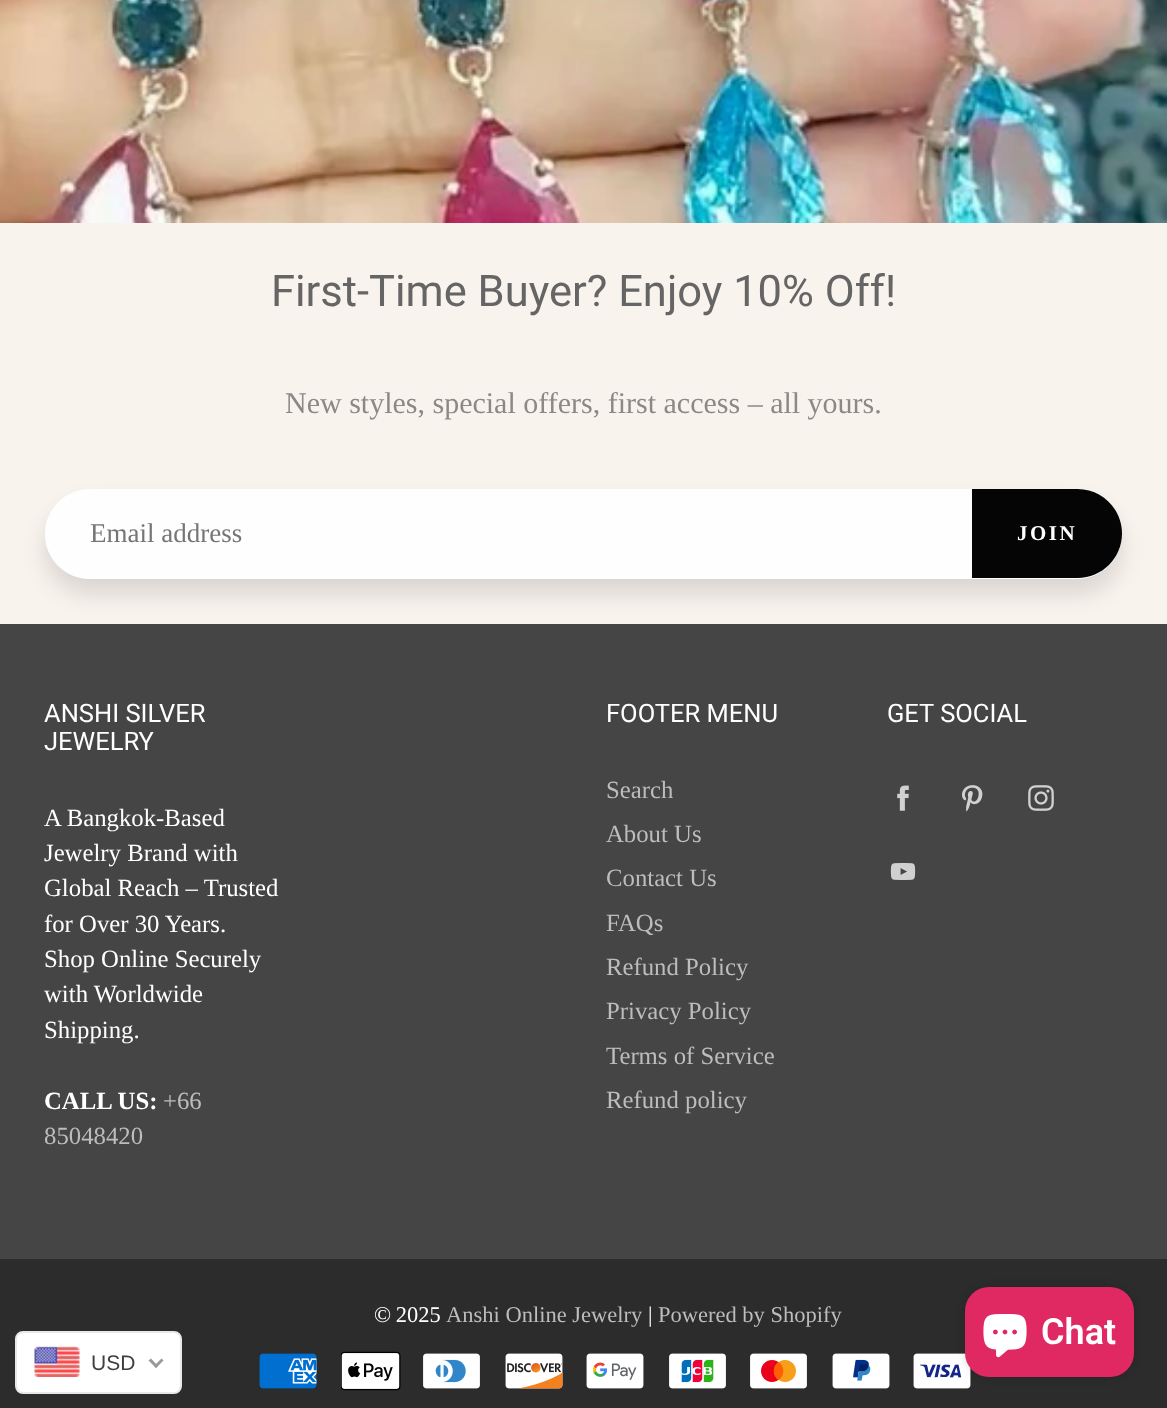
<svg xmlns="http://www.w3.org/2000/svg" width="1167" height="1408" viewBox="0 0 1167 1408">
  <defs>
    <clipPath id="clip1"><path d="M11 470H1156V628H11ZM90 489H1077C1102 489 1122 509 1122 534C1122 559 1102 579 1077 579H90C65 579 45 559 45 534C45 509 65 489 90 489Z" clip-rule="evenodd"/></clipPath>
  </defs>
  <rect width="100%" height="100%" fill="#454545"/>
  <path d="M0 223h1167v401H0z" fill="#f9f3ee"/>
  <image x="0" y="0" width="1167" height="223" href="img/1.png"/>
  <g clip-path="url(#clip1)">
    <rect x="45" y="504" width="1077" height="90" rx="45" fill="#0000001f" filter="blur(11px)"/>
  </g>
  <rect x="45" y="489" width="1077" height="90" rx="45" fill="#ffffffe6"/>
  <path d="M972 489H1077.5C1102 489 1122 509 1122 533.5C1122 558 1102 578 1077.5 578H972Z" fill="#050505"/>
  <image x="897" y="785" width="12" height="26" href="img/2.png"/>
  <image x="962" y="785" width="21" height="27" href="img/3.png"/>
  <image x="1028" y="785" width="26" height="26" href="img/4.png"/>
  <image x="890" y="863" width="26" height="17" href="img/5.png"/>
  <path d="M0 1259h1167v149H0z" fill="#2c2c2c"/>
  <image x="259" y="1353" width="58" height="36" href="img/6.png"/>
  <image x="341" y="1351" width="60" height="40" href="img/7.png"/>
  <image x="423" y="1353" width="57" height="36" href="img/8.png"/>
  <image x="505" y="1353" width="58" height="36" href="img/9.png"/>
  <image x="586" y="1353" width="58" height="36" href="img/10.png"/>
  <image x="669" y="1353" width="57" height="36" href="img/11.png"/>
  <image x="750" y="1353" width="57" height="36" href="img/12.png"/>
  <image x="832" y="1353" width="58" height="36" href="img/13.png"/>
  <image x="913" y="1353" width="58" height="36" href="img/14.png"/>
  <rect x="965" y="1287" width="169" height="90" rx="24" fill="#00000026" filter="blur(4px)"/>
  <rect x="965" y="1287" width="169" height="90" rx="24" fill="#e02863"/>
  <image x="983" y="1314" width="44" height="44" href="img/15.png"/>
  <rect x="16" y="1332" width="165" height="61" rx="7" fill="#fff" stroke="#e8e8e8" stroke-width="2"/>
  <image x="34" y="1346" width="46" height="31" href="img/16.png"/>
  <path d="M161.5 1358.5L163.5 1360.5L156 1368L154 1366Z" fill="#999"/>
  <path d="M151 1358.5L158 1366L156 1368L148.5 1360.5Z" fill="#999"/>
  <text x="271" y="306" font-family="Roboto" font-size="43.5" fill="#666565">First-Time Buyer? Enjoy 10% Off!</text>
  <text x="285" y="413" font-family="Liberation Serif" font-size="30" fill="#8b8987">New styles, special offers, first access – all yours.</text>
  <text x="90" y="542" font-family="Liberation Serif" font-size="27" fill="#757575">Email address</text>
  <text x="1017" y="540" font-family="Liberation Serif" font-size="21" font-weight="bold" letter-spacing="2.5" fill="#fff">JOIN</text>
  <g font-family="Roboto" font-size="25.5" fill="#fff">
    <text x="44" y="722">ANSHI SILVER</text>
    <text x="44" y="750">JEWELRY</text>
  </g>
  <g font-family="Liberation Serif" font-size="24.75" fill="#fff">
    <text x="44" y="826">A Bangkok-Based</text>
    <text x="44" y="861">Jewelry Brand with</text>
    <text x="44" y="896">Global Reach – Trusted</text>
    <text x="44" y="932">for Over 30 Years.</text>
    <text x="44" y="967">Shop Online Securely</text>
    <text x="44" y="1002">with Worldwide</text>
    <text x="44" y="1038">Shipping.</text>
  </g>
  <text x="44" y="1109" font-family="Liberation Serif" font-size="24.75" font-weight="bold" fill="#fff">CALL US:</text>
  <g font-family="Liberation Serif" font-size="24.75" fill="#bdbdbd">
    <text x="163" y="1109">+66</text>
    <text x="44" y="1144">85048420</text>
  </g>
  <text x="606" y="722" font-family="Roboto" font-size="25.5" fill="#fff">FOOTER MENU</text>
  <g font-family="Liberation Serif" font-size="24.75" fill="#bdbdbd">
    <text x="606" y="798">Search</text>
    <text x="606" y="842">About Us</text>
    <text x="606" y="886">Contact Us</text>
    <text x="606" y="931">FAQs</text>
    <text x="606" y="975">Refund Policy</text>
    <text x="606" y="1019">Privacy Policy</text>
    <text x="606" y="1064">Terms of Service</text>
    <text x="606" y="1108">Refund policy</text>
  </g>
  <text x="887" y="722" font-family="Roboto" font-size="25.5" fill="#fff">GET SOCIAL</text>
  <text x="374" y="1322" word-spacing="-1" font-family="Liberation Serif" font-size="22.5" fill="#fff">© 2025</text>
  <text x="446" y="1322" font-family="Liberation Serif" font-size="22.5" fill="#bdbdbd">Anshi Online Jewelry</text>
  <text x="648" y="1322" font-family="Liberation Serif" font-size="22.5" fill="#fff">|</text>
  <text x="658" y="1322" font-family="Liberation Serif" font-size="22.5" fill="#bdbdbd">Powered by Shopify</text>
  <text x="1041" y="1344" font-family="Roboto" font-size="36" font-weight="600" fill="#fff">Chat</text>
  <text x="91" y="1370" font-family="Liberation Sans" font-size="21" fill="#403f3f">USD</text>
</svg>
